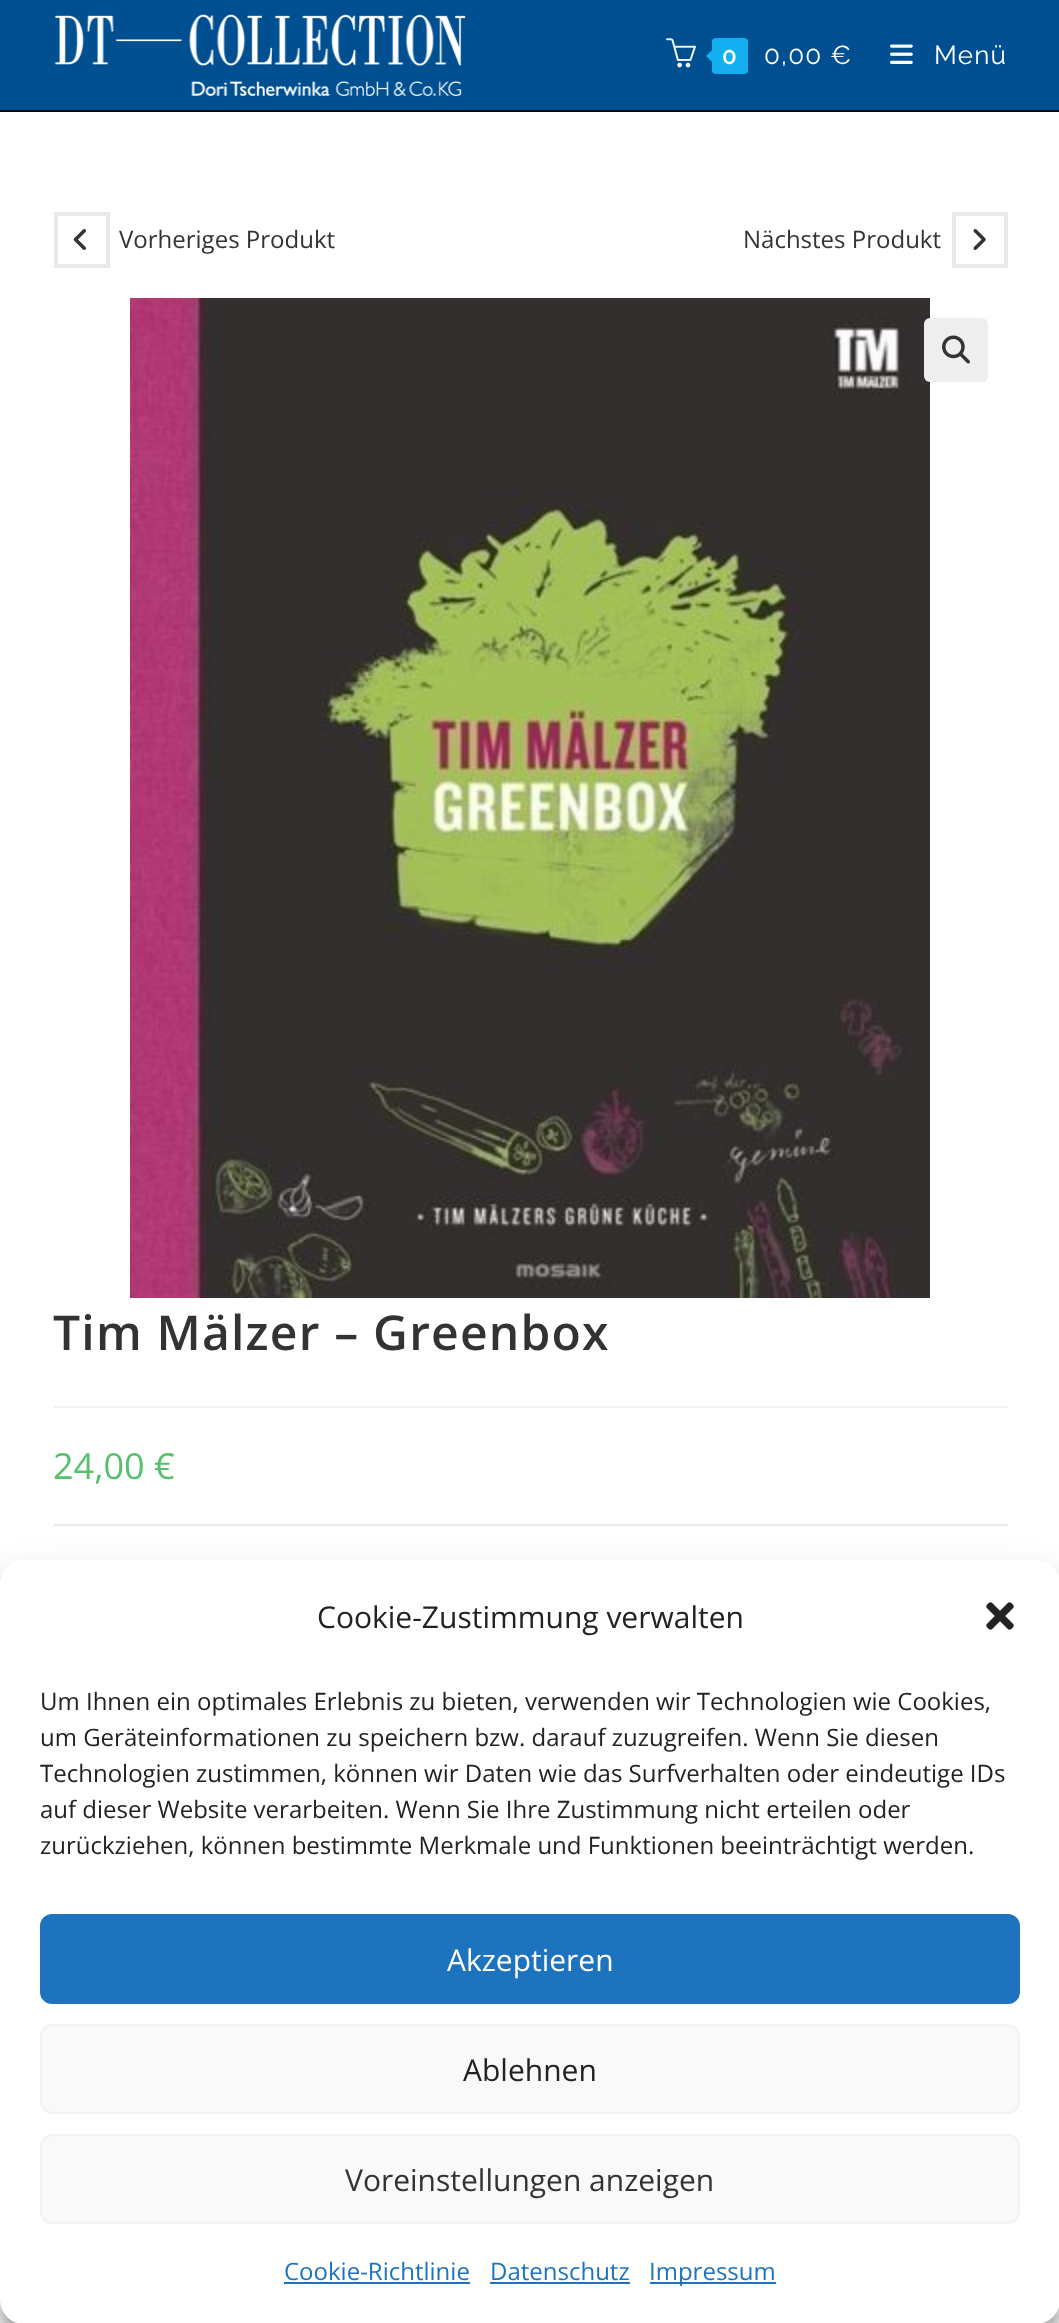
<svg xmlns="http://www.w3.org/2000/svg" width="1059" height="2323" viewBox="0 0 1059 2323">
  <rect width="100%" height="100%" fill="#fff"/>
  <path d="M0 0h1059v110H0z" fill="#005091"/>
  <path d="M0 110h1059v2H0z" fill="#0a0a0a"/>
  <image x="55" y="14" width="411" height="83" href="img/1.png"/>
  <image x="666" y="38" width="30" height="30" href="img/2.png"/>
  <rect x="712" y="38" width="36" height="36" rx="4" fill="#13aff0"/>
  <path d="M716 46V66L706 56Z" fill="#13aff0"/>
  <image x="890" y="44" width="23" height="20" href="img/3.png"/>
  <path d="M56 214h52v52H56z" fill="none" stroke="#e9e9e9" stroke-width="4"/>
  <image x="73" y="229" width="13" height="21" href="img/4.png"/>
  <path d="M954 214h52v52H954z" fill="none" stroke="#e9e9e9" stroke-width="4"/>
  <image x="973" y="229" width="13" height="21" href="img/5.png"/>
  <image x="130" y="298" width="800" height="1000" href="img/6.png"/>
  <rect x="924" y="318" width="64" height="64" rx="6" fill="#eee"/>
  <image x="942" y="335" width="28" height="29" href="img/7.png"/>
  <path d="M54 1406h954v2H54z" fill="#f1f1f1"/>
  <path d="M54 1524h954v2H54z" fill="#eaeaea"/>
  <rect y="1572" width="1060" height="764" rx="24" fill="#0000003b" filter="blur(6px)"/>
  <rect y="1580" width="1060" height="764" rx="24" fill="#00000030" filter="blur(20px)"/>
  <rect y="1560" width="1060" height="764" rx="24" fill="#fff"/>
  <image x="986" y="1602" width="28" height="28" href="img/8.png"/>
  <rect x="41" y="1915" width="978" height="88" rx="11" fill="#1e73be" stroke="#1e73be" stroke-width="2"/>
  <rect x="41" y="2025" width="978" height="88" rx="11" fill="#f9f9f9" stroke="#f2f2f2" stroke-width="2"/>
  <rect x="41" y="2135" width="978" height="88" rx="11" fill="#f9f9f9" stroke="#f2f2f2" stroke-width="2"/>
  <path d="M284 2282h186v2H284z" fill="#1e73be"/>
  <path d="M490 2282h140v2H490z" fill="#1e73be"/>
  <path d="M650 2282h126v2H650z" fill="#1e73be"/>
  <text x="722" y="64" font-family="Raleway" font-size="24" font-weight="600" letter-spacing="1.2" fill="#fff">0</text>
  <g font-family="Raleway" font-size="26" letter-spacing="1.2" fill="#fff">
    <text x="764" y="64">0,00 €</text>
    <text x="934" y="64">Menü</text>
  </g>
  <g font-family="Open Sans" font-size="24" fill="#333">
    <text x="119" y="248">Vorheriges Produkt</text>
    <text x="743" y="248">Nächstes Produkt</text>
  </g>
  <text x="53" y="1350" font-family="Open Sans" font-size="48" font-weight="600" letter-spacing="1.2" fill="#333">Tim Mälzer – Greenbox</text>
  <text x="53" y="1479" font-family="Open Sans" font-size="36" fill="#57bf6d">24,00 €</text>
  <text x="317" y="1628" font-family="Open Sans" font-size="30" fill="#222">Cookie-Zustimmung verwalten</text>
  <g font-family="Open Sans" font-size="24" fill="#222">
    <text x="40" y="1710">Um Ihnen ein optimales Erlebnis zu bieten, verwenden wir Technologien wie Cookies,</text>
    <text x="40" y="1746">um Geräteinformationen zu speichern bzw. darauf zuzugreifen. Wenn Sie diesen</text>
    <text x="40" y="1782">Technologien zustimmen, können wir Daten wie das Surfverhalten oder eindeutige IDs</text>
    <text x="40" y="1818">auf dieser Website verarbeiten. Wenn Sie Ihre Zustimmung nicht erteilen oder</text>
    <text x="40" y="1854">zurückziehen, können bestimmte Merkmale und Funktionen beeinträchtigt werden.</text>
  </g>
  <text x="447" y="1971" font-family="Open Sans" font-size="30" fill="#fff">Akzeptieren</text>
  <text x="463" y="2081" font-family="Open Sans" font-size="30" fill="#222">Ablehnen</text>
  <text x="345" y="2191" font-family="Open Sans" font-size="30" fill="#333">Voreinstellungen anzeigen</text>
  <g font-family="Open Sans" font-size="24" fill="#1e73be">
    <text x="284" y="2280">Cookie-Richtlinie</text>
    <text x="490" y="2280">Datenschutz</text>
    <text x="649" y="2280">Impressum</text>
  </g>
</svg>
